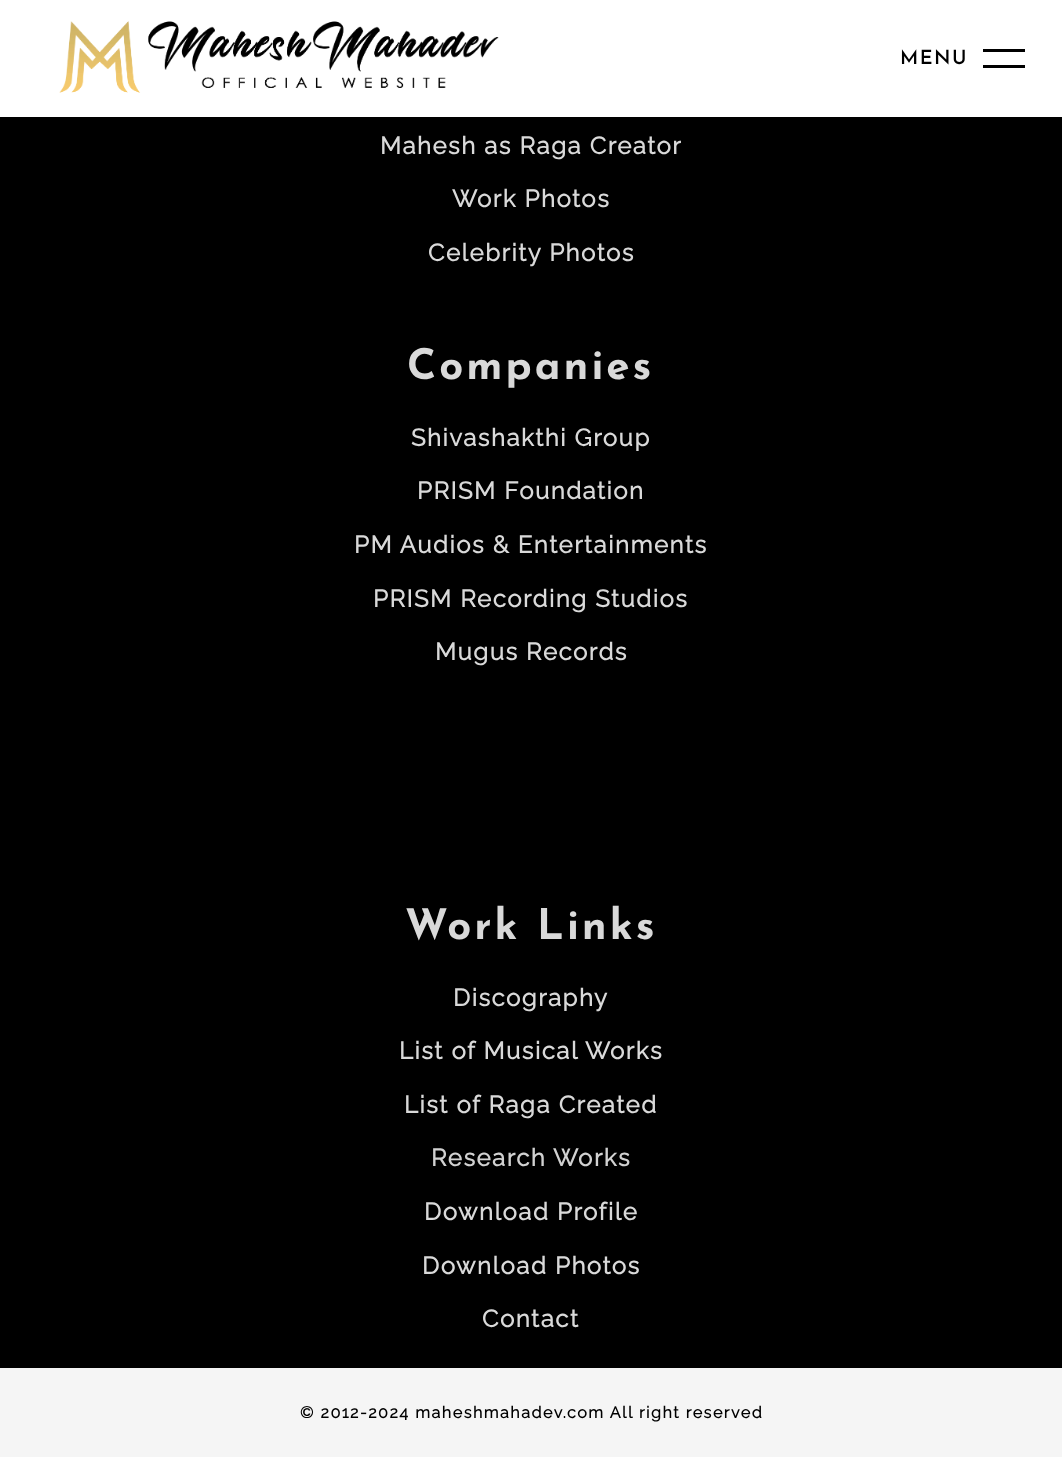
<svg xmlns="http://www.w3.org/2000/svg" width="1062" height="1457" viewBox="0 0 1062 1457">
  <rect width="100%" height="100%" fill="#f5f5f5"/>
  <path d="M0 0h1062v117H0z" fill="#fff"/>
  <image x="59" y="21" width="440" height="72" href="img/1.png"/>
  <path d="M983 49h42v3H983z" fill="#000"/>
  <path d="M983 65h42v3H983z" fill="#000"/>
  <path d="M0 117h1062v1251H0z" fill="#000"/>
  <text x="900" y="64" font-family="Josefin Sans" font-size="19.5" font-weight="600" letter-spacing="1.5" fill="#000">MENU</text>
  <g font-family="Raleway" font-size="24" font-weight="bold" letter-spacing="1.5" fill="#d9d9d9">
    <text x="380" y="154">Mahesh as Raga Creator</text>
    <text x="452" y="207">Work Photos</text>
    <text x="428" y="261">Celebrity Photos</text>
  </g>
  <text x="407" y="379" font-family="Josefin Sans" font-size="42" font-weight="bold" letter-spacing="3" fill="#d9d9d9">Companies</text>
  <g font-family="Raleway" font-size="24" font-weight="bold" letter-spacing="1.5" fill="#d9d9d9">
    <text x="411" y="446">Shivashakthi Group</text>
    <text x="417" y="499">PRISM Foundation</text>
    <text x="354" y="553">PM Audios &amp; Entertainments</text>
    <text x="373" y="607">PRISM Recording Studios</text>
    <text x="435" y="660">Mugus Records</text>
  </g>
  <text x="405" y="939" font-family="Josefin Sans" font-size="42" font-weight="bold" letter-spacing="3" fill="#d9d9d9">Work Links</text>
  <g font-family="Raleway" font-size="24" font-weight="bold" letter-spacing="1.5" fill="#d9d9d9">
    <text x="453" y="1006">Discography</text>
    <text x="399" y="1059">List of Musical Works</text>
    <text x="404" y="1113">List of Raga Created</text>
  </g>
  <text x="431" y="1166" font-family="Raleway" font-size="24" font-weight="bold" letter-spacing="1.5" fill="#d1d1d1">Research Works</text>
  <g font-family="Raleway" font-size="24" font-weight="bold" letter-spacing="1.5" fill="#d9d9d9">
    <text x="424" y="1220">Download Profile</text>
    <text x="422" y="1274">Download Photos</text>
    <text x="482" y="1327">Contact</text>
  </g>
  <text x="300" y="1418" font-family="Raleway" font-size="16.1" font-weight="bold" letter-spacing="1.5" fill="#000">© 2012-2024 maheshmahadev.com All right reserved</text>
</svg>
